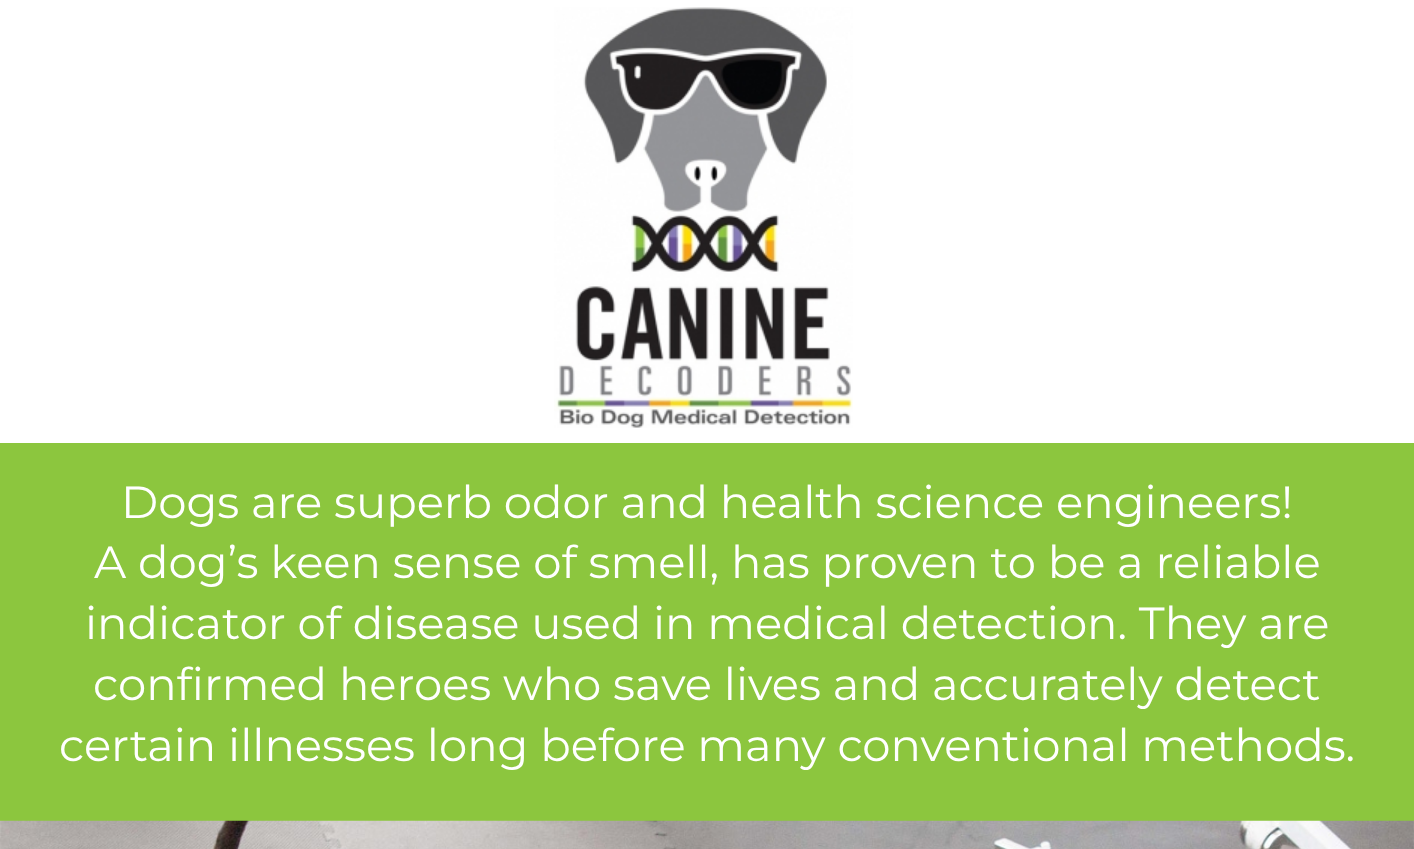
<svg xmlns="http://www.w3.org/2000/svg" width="1414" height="849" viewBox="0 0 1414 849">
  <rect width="100%" height="100%" fill="#fff"/>
  <image x="554" y="7" width="299" height="421" href="img/1.png"/>
  <path d="M0 443h1414v378H0z" fill="#8cc63e"/>
  <image x="0" y="820" width="1414" height="29" href="img/2.png"/>
  <g font-family="Montserrat" font-size="45" fill="#fff">
    <text x="121" y="518">Dogs are superb odor and health science engineers!</text>
    <text x="94" y="578">A dog’s keen sense of smell, has proven to be a reliable</text>
    <text x="85" y="639">indicator of disease used in medical detection. They are</text>
    <text x="93" y="700">confirmed heroes who save lives and accurately detect</text>
    <text x="59" y="761">certain illnesses long before many conventional methods.</text>
  </g>
</svg>
